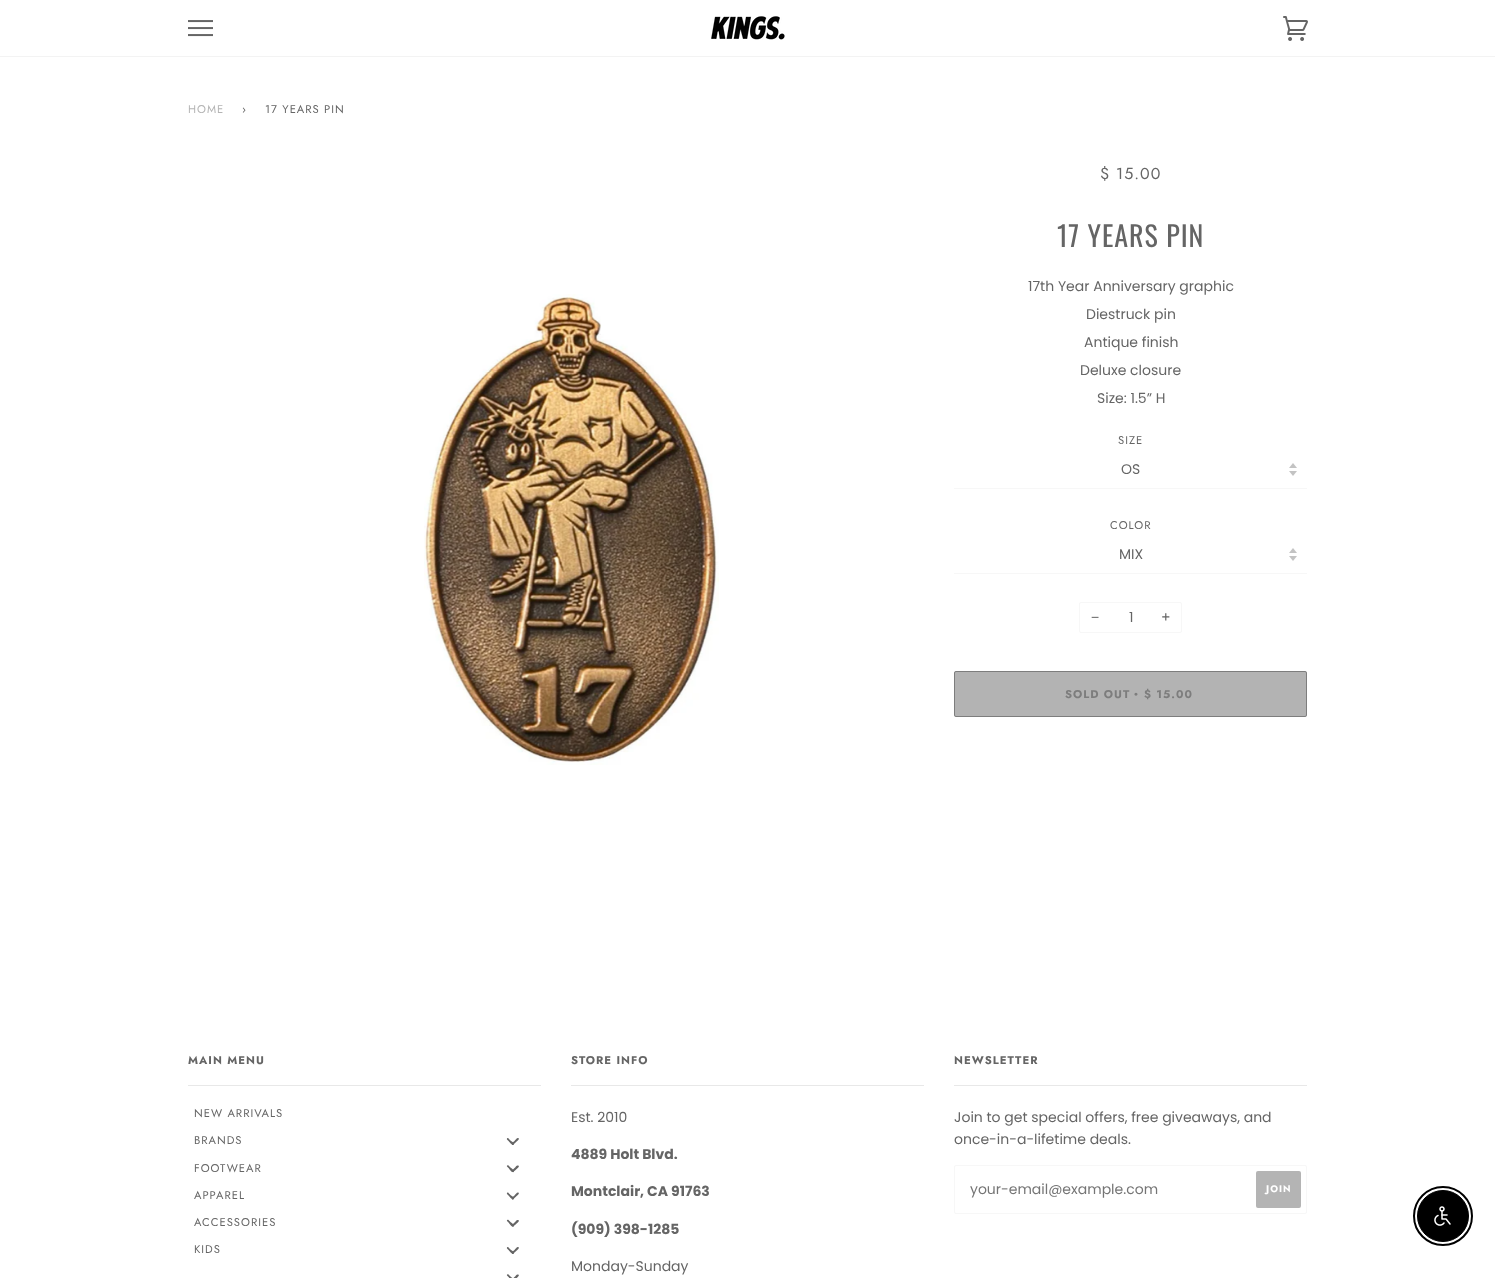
<svg xmlns="http://www.w3.org/2000/svg" width="1495" height="1278" viewBox="0 0 1495 1278">
  <rect width="100%" height="100%" fill="#fff"/>
  <path d="M0 56h1495v1H0z" fill="#f3f3f3"/>
  <image x="188" y="20" width="25" height="17" href="img/1.png"/>
  <image x="711" y="16" width="74" height="24" href="img/2.png"/>
  <image x="1283" y="16" width="25" height="25" href="img/3.png"/>
  <image x="424" y="294" width="295" height="471" href="img/4.png"/>
  <image x="1289" y="463" width="8" height="13" href="img/5.png"/>
  <path d="M954 488h353v1H954z" fill="#f7f7f7"/>
  <image x="1289" y="548" width="8" height="13" href="img/5.png"/>
  <path d="M954 573h353v1H954z" fill="#f7f7f7"/>
  <rect x="1079.5" y="602.5" width="102" height="30" rx="1.5" fill="none" stroke="#f7f7f7"/>
  <rect x="954" y="671" width="353" height="46" rx="2" fill="#b3b3b3"/>
  <rect x="954.5" y="671.5" width="352" height="45" rx="1.5" fill="none" stroke="#0000004d"/>
  <path d="M188 1085h353v1H188z" fill="#e8e8e8"/>
  <path d="M508.5 1138.5L511 1141C512 1141.5 514 1143 514 1144C513 1147 509 1141.5 509 1141.5L507 1139.5C506.5 1138.5 508 1137.5 508.5 1138.5Z" fill="#656565"/>
  <path d="M512 1143L514.5 1141C515.5 1140 516.5 1138 518 1138C521 1138.5 515.5 1142.5 515 1143L513 1145C512 1145.5 511.5 1144 512 1143Z" fill="#656565"/>
  <path d="M508.5 1165.5L511 1168C512 1168.5 514 1170 514 1171.5C513 1174 509 1169 509 1168.5L507 1166.5C506.5 1165.5 508 1165 508.5 1165.5Z" fill="#656565"/>
  <path d="M512 1170.5L514.5 1168C515.5 1167.5 516.5 1165 518 1165.5C521 1166 515.5 1170 515 1170.5L513 1172C512 1172.5 511.5 1171 512 1170.5Z" fill="#656565"/>
  <path d="M508.5 1193L511 1195.5C512 1196 514 1197.5 514 1198.5C513 1201.5 509 1196 509 1196L507 1194C506.5 1193 508 1192 508.5 1193Z" fill="#656565"/>
  <path d="M512 1197.5L514.5 1195.5C515.5 1194.5 516.5 1192.5 518 1192.5C521 1193 515.5 1197 515 1197.5L513 1199.5C512 1200 511.5 1198.5 512 1197.5Z" fill="#656565"/>
  <path d="M508.5 1220L511 1222.5C512 1223 514 1224.5 514 1226C513 1228.5 509 1223.5 509 1223L507 1221C506.5 1220 508 1219.5 508.5 1220Z" fill="#656565"/>
  <path d="M512 1225L514.5 1222.5C515.5 1222 516.5 1219.5 518 1220C521 1220.5 515.5 1224.5 515 1225L513 1226.5C512 1227 511.5 1225.5 512 1225Z" fill="#656565"/>
  <path d="M508.5 1247.5L511 1250C512 1250.5 514 1252 514 1253C513 1256 509 1250.5 509 1250.5L507 1248.5C506.5 1247.5 508 1246.5 508.5 1247.5Z" fill="#656565"/>
  <path d="M512 1252L514.5 1250C515.5 1249 516.5 1247 518 1247C521 1247.5 515.5 1251.5 515 1252L513 1254C512 1254.5 511.5 1253 512 1252ZM508.5 1274.5L511 1277C512 1277.5 514 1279 514 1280.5C513 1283 509 1278 509 1277.5L507 1275.5C506.5 1274.5 508 1274 508.5 1274.5Z" fill="#656565"/>
  <path d="M512 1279.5L514.5 1277C515.5 1276.5 516.5 1274 518 1274.5C521 1275 515.5 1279 515 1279.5L513 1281C512 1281.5 511.5 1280 512 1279.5Z" fill="#656565"/>
  <path d="M571 1085h353v1H571z" fill="#e8e8e8"/>
  <path d="M954 1085h353v1H954z" fill="#e8e8e8"/>
  <rect x="954.5" y="1165.5" width="352" height="48" rx="1.5" fill="none" stroke="#f7f7f7"/>
  <rect x="1256" y="1171" width="45" height="37" rx="2" fill="#b4b4b4"/>
  <circle cx="1443" cy="1216" r="29" fill="none" stroke="#000" stroke-width="2"/>
  <circle cx="1443" cy="1216" r="25.5" fill="#000" stroke="#000"/>
  <image x="1434" y="1206" width="17" height="20" href="img/6.png"/>
  <text x="188" y="113" font-family="Jost" font-size="11.25" letter-spacing="1" fill="#b4b4b4">HOME</text>
  <g font-family="Jost" font-size="11.25" letter-spacing="1" fill="#656565">
    <text x="242" y="113">›</text>
    <text x="265" y="113">17 YEARS PIN</text>
  </g>
  <text x="1100" y="179" font-family="Jost" font-size="16" letter-spacing="1" fill="#656565">$ 15.00</text>
  <text x="1057" y="247" font-family="Oswald" font-size="28" letter-spacing="1" fill="#656565">17 YEARS PIN</text>
  <g font-family="Poppins" font-size="14" fill="#656565">
    <text x="1028" y="291">17th Year Anniversary graphic</text>
    <text x="1086" y="319">Diestruck pin</text>
    <text x="1084" y="347">Antique finish</text>
    <text x="1080" y="375">Deluxe closure</text>
    <text x="1097" y="403">Size: 1.5” H</text>
  </g>
  <text x="1118" y="444" font-family="Jost" font-size="11.25" letter-spacing="1" fill="#656565">SIZE</text>
  <text x="1121" y="474" font-family="Poppins" font-size="14" fill="#656565">OS</text>
  <text x="1110" y="529" font-family="Jost" font-size="11.25" letter-spacing="1" fill="#656565">COLOR</text>
  <text x="1119" y="559" font-family="Poppins" font-size="14" fill="#656565">MIX</text>
  <text x="1091" y="622" font-family="Liberation Sans" font-size="14" fill="#656565">−</text>
  <g font-family="Poppins" font-size="14" fill="#656565">
    <text x="1129" y="622">1</text>
    <text x="1161" y="622">+</text>
  </g>
  <text x="1065" y="698" font-family="Jost" font-size="11.25" font-weight="bold" letter-spacing="1" fill="#7d7d7d">SOLD OUT</text>
  <text x="1134" y="698" font-family="Liberation Serif" font-size="11.25" font-weight="bold" letter-spacing="1" fill="#7d7d7d">•</text>
  <text x="1144" y="698" font-family="Jost" font-size="11.25" font-weight="bold" letter-spacing="1" fill="#7d7d7d">$ 15.00</text>
  <text x="188" y="1064" font-family="Jost" font-size="11.25" font-weight="bold" letter-spacing="1" fill="#656565">MAIN MENU</text>
  <g font-family="Jost" font-size="11.25" letter-spacing="1" fill="#656565">
    <text x="194" y="1117">NEW ARRIVALS</text>
    <text x="194" y="1144">BRANDS</text>
    <text x="194" y="1172">FOOTWEAR</text>
    <text x="194" y="1199">APPAREL</text>
    <text x="194" y="1226">ACCESSORIES</text>
    <text x="194" y="1253">KIDS</text>
  </g>
  <text x="571" y="1064" font-family="Jost" font-size="11.25" font-weight="bold" letter-spacing="1" fill="#656565">STORE INFO</text>
  <text x="571" y="1122" font-family="Poppins" font-size="14" fill="#656565">Est. 2010</text>
  <g font-family="Poppins" font-size="14" font-weight="bold" fill="#656565">
    <text x="571" y="1159">4889 Holt Blvd.</text>
    <text x="571" y="1196">Montclair, CA 91763</text>
    <text x="571" y="1234">(909) 398-1285</text>
  </g>
  <text x="571" y="1271" font-family="Poppins" font-size="14" fill="#656565">Monday-Sunday</text>
  <text x="954" y="1064" font-family="Jost" font-size="11.25" font-weight="bold" letter-spacing="1" fill="#656565">NEWSLETTER</text>
  <g font-family="Poppins" font-size="14" fill="#656565">
    <text x="954" y="1122">Join to get special offers, free giveaways, and</text>
    <text x="954" y="1144">once-in-a-lifetime deals.</text>
  </g>
  <text x="970" y="1194" font-family="Poppins" font-size="14" fill="#757575">your-email@example.com</text>
  <text x="1266" y="1192" font-family="Jost" font-size="9.5" font-weight="bold" letter-spacing="1" fill="#fff">JOIN</text>
</svg>
